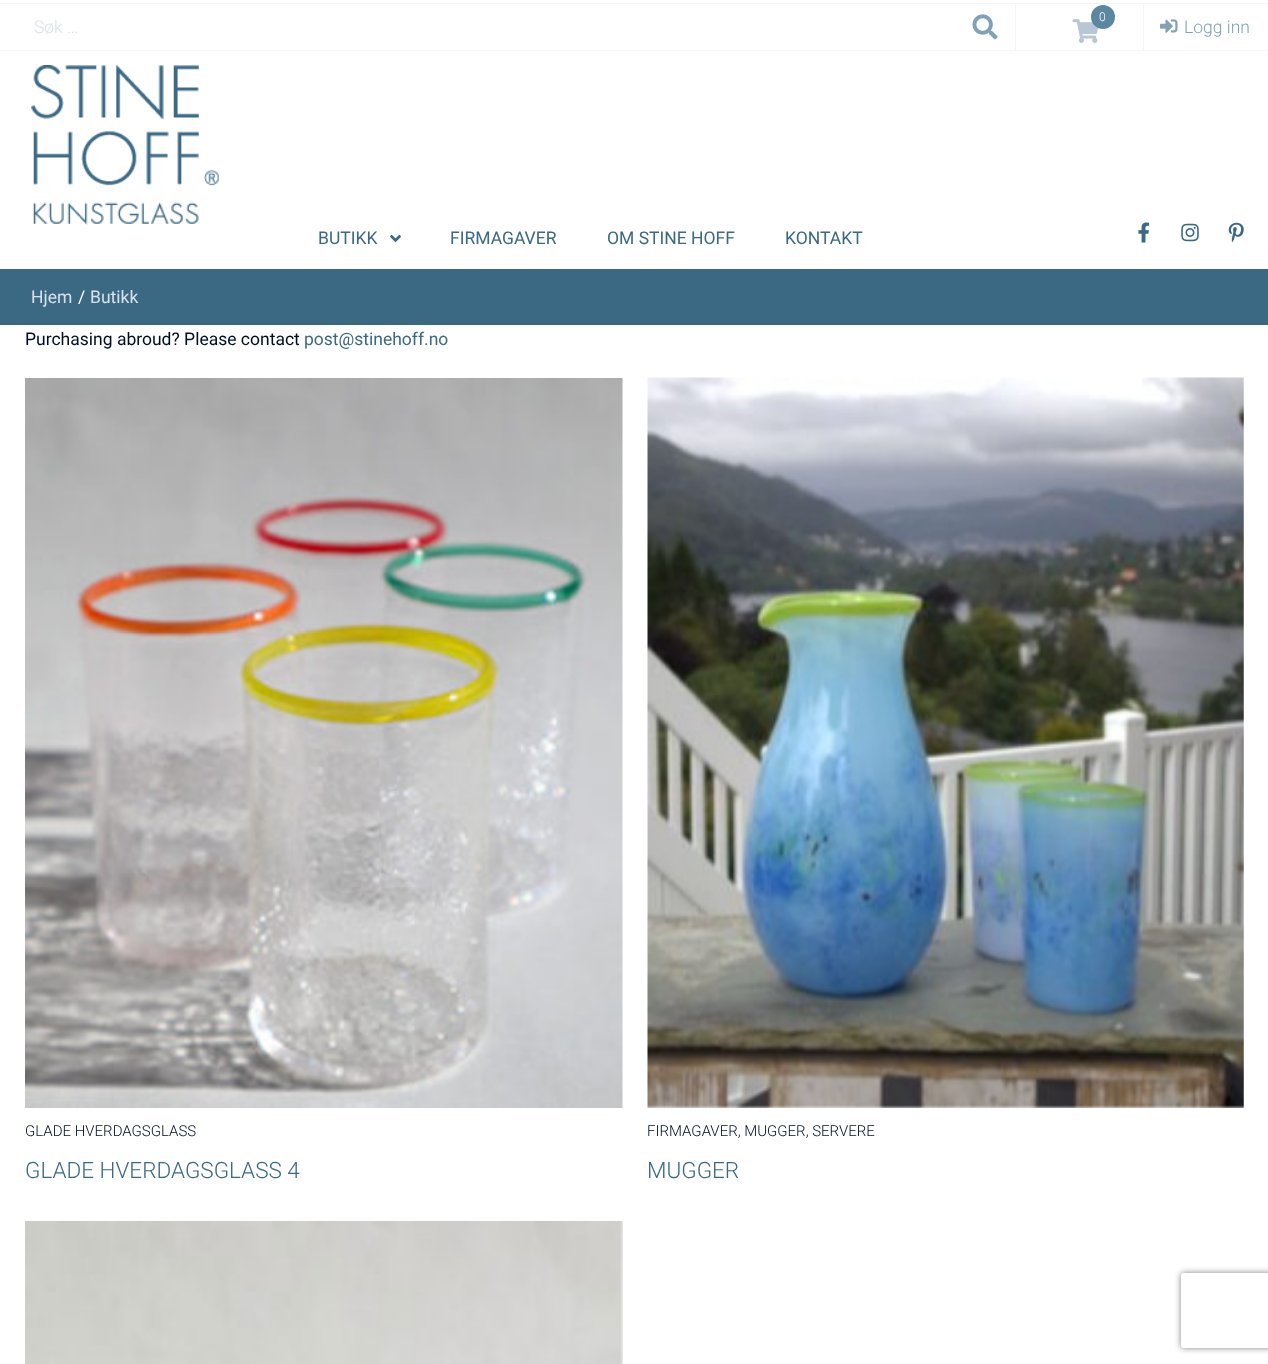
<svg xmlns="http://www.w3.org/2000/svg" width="1268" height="1364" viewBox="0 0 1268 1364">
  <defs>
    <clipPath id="clip1"><path d="M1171 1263H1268V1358H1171ZM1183.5 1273H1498.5C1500 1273 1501 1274 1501 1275.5V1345.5C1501 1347 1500 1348 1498.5 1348H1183.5C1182 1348 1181 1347 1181 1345.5V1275.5C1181 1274 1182 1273 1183.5 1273Z" clip-rule="evenodd"/></clipPath>
  </defs>
  <rect width="100%" height="100%" fill="#fff"/>
  <path d="M0 50h1268v1H0z" fill="#f6f6f6"/>
  <path d="M0 3h1268v1H0z" fill="#f6f6f6"/>
  <path d="M1015 4h1v46H1015z" fill="#f6f6f6"/>
  <image x="1072" y="19" width="27" height="24" href="img/1.png"/>
  <circle cx="1103" cy="17" r="12" fill="#5d87a1"/>
  <image x="972" y="14" width="26" height="26" href="img/2.png"/>
  <path d="M1143 4h1v46H1143z" fill="#f6f6f6"/>
  <image x="1160" y="19" width="18" height="14" href="img/3.png"/>
  <image x="31" y="65" width="188" height="160" href="img/4.png"/>
  <image x="390" y="235" width="11" height="7" href="img/5.png"/>
  <image x="1138" y="222" width="12" height="21" href="img/6.png"/>
  <image x="1181" y="223" width="18" height="19" href="img/7.png"/>
  <image x="1228" y="222" width="16" height="21" href="img/8.png"/>
  <path d="M0 269h1268v56H0z" fill="#3b6984"/>
  <image x="25" y="378" width="598" height="730" href="img/9.png"/>
  <image x="647" y="377" width="597" height="731" href="img/10.png"/>
  <image x="25" y="1221" width="598" height="143" href="img/11.png"/>
  <g clip-path="url(#clip1)">
    <rect x="1181" y="1273" width="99" height="75" rx="2.5" fill="#808080" filter="blur(3px)"/>
  </g>
  <text x="1099" y="21" font-family="Roboto" font-size="12" font-weight="300" fill="#fff">0</text>
  <text x="34" y="33" font-family="Roboto" font-size="17.5" font-weight="300" fill="#d8e3e9">Søk …</text>
  <text x="1184" y="33" font-family="Roboto" font-size="17.5" font-weight="300" fill="#80a1b6">Logg inn</text>
  <g font-family="Roboto" font-size="17.5" fill="#3b6984">
    <text x="318" y="244">BUTIKK</text>
    <text x="450" y="244">FIRMAGAVER</text>
    <text x="607" y="244">OM STINE HOFF</text>
    <text x="785" y="244">KONTAKT</text>
  </g>
  <text x="31" y="303" font-family="Roboto" font-size="17.5" fill="#d8e3e9">Hjem</text>
  <text x="78" y="303" font-family="Roboto" font-size="17.5" fill="#fff">/</text>
  <text x="90" y="303" font-family="Roboto" font-size="17.5" fill="#d8e3e9">Butikk</text>
  <text x="25" y="345" font-family="Roboto" font-size="17.5" fill="#000d27">Purchasing abroud? Please contact</text>
  <text x="304" y="345" font-family="Roboto" font-size="17.5" fill="#3b6984">post@stinehoff.no</text>
  <text x="25" y="1136" font-family="Roboto" font-size="15" font-weight="300" fill="#000d27">GLADE HVERDAGSGLASS</text>
  <text x="25" y="1178" font-family="Roboto" font-size="22.5" font-weight="300" fill="#3b6984">GLADE HVERDAGSGLASS 4</text>
  <text x="647" y="1136" font-family="Roboto" font-size="15" font-weight="300" fill="#000d27">FIRMAGAVER, MUGGER, SERVERE</text>
  <text x="647" y="1178" font-family="Roboto" font-size="22.5" font-weight="300" fill="#3b6984">MUGGER</text>
</svg>
